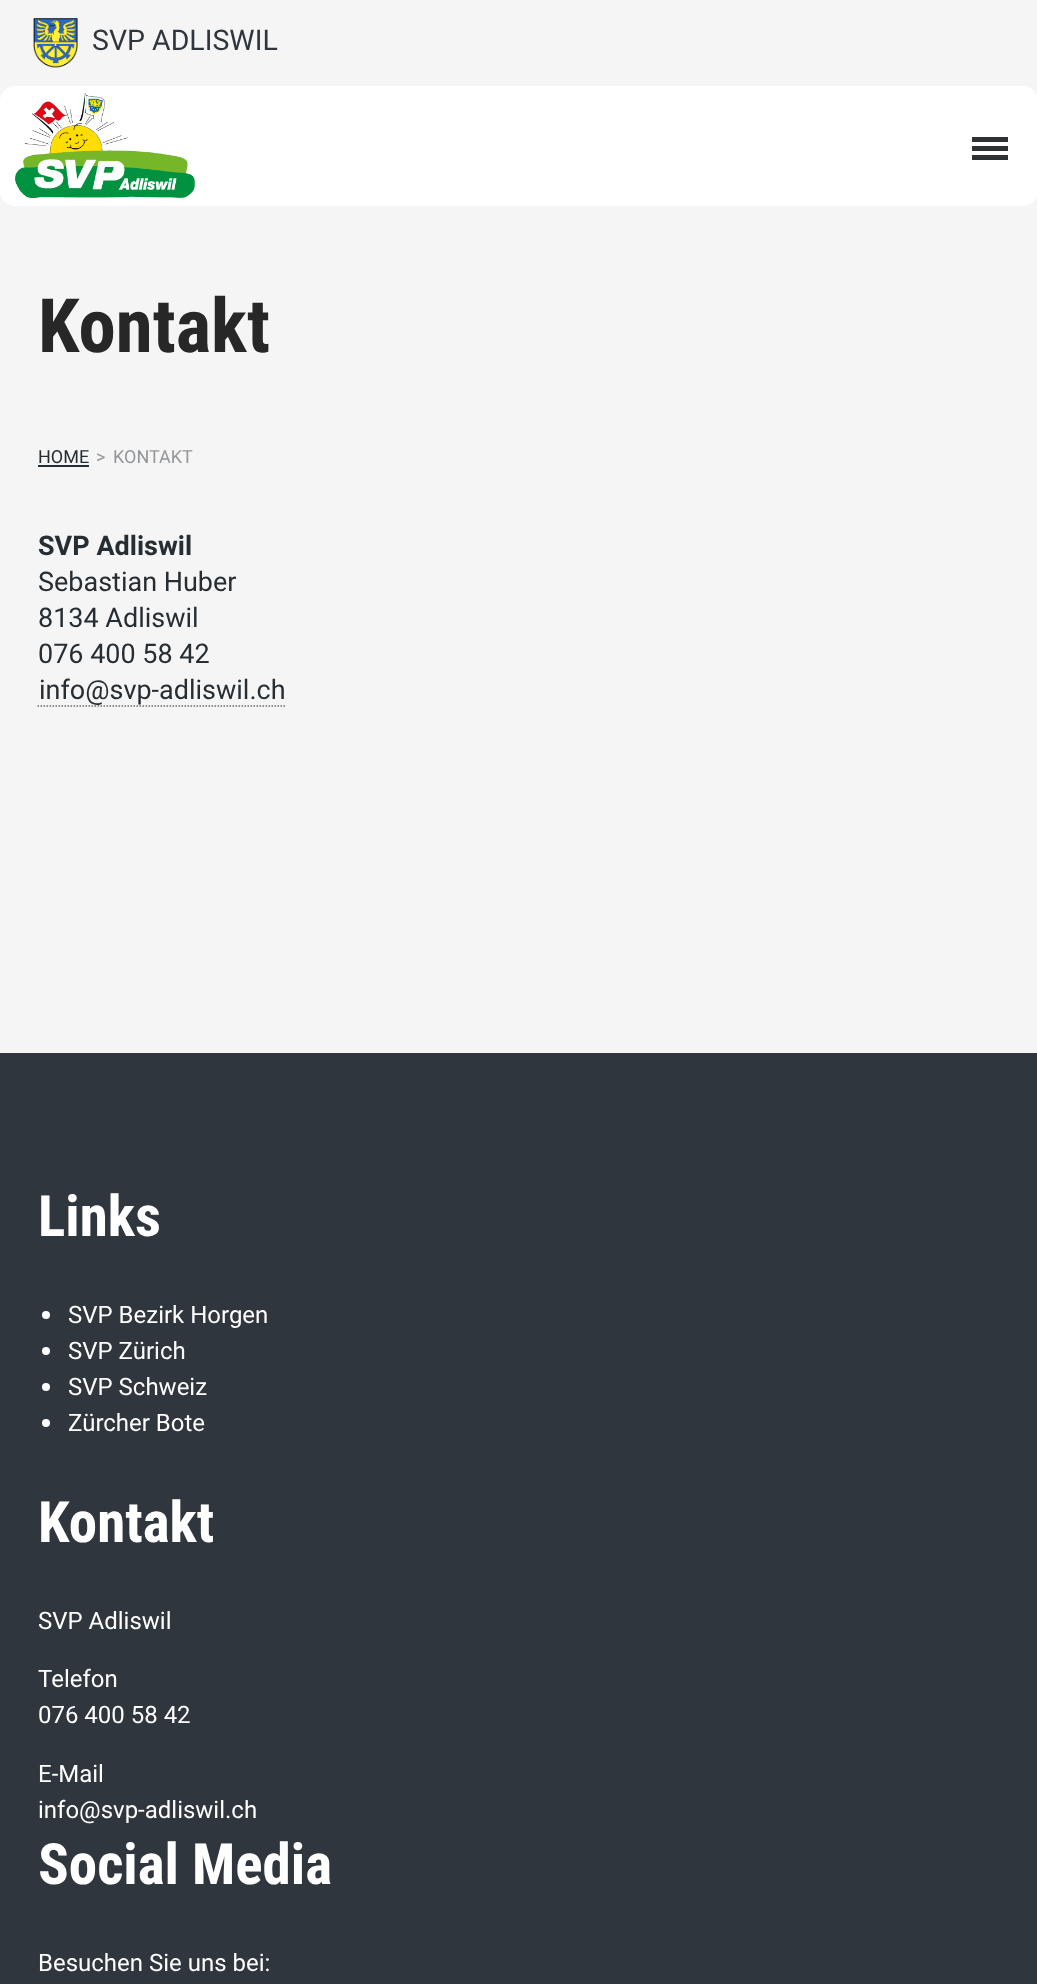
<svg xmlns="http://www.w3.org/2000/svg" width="1037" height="1984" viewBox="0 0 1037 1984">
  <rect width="100%" height="100%" fill="#f5f5f5"/>
  <image x="33" y="18" width="45" height="50" href="img/1.png"/>
  <rect y="86" width="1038" height="120" rx="15" fill="#fff"/>
  <image x="15" y="93" width="180" height="105" href="img/2.png"/>
  <path d="M972 146h36v5H972z" fill="#2e3233"/>
  <path d="M972 137h36v5H972z" fill="#2e3233"/>
  <path d="M972 155h36v5H972z" fill="#2e3233"/>
  <path d="M38 465h51v2H38z" fill="#262d33"/>
  <path d="M37.5 706H286.5" fill="none" stroke="#656b70" stroke-width="1.5" stroke-dasharray="1.5 1.5"/>
  <path d="M0 1053h1037v931H0z" fill="#30363d"/>
  <circle cx="46" cy="1315" r="4" fill="#fff"/>
  <circle cx="46" cy="1351" r="4" fill="#fff"/>
  <circle cx="46" cy="1387" r="4" fill="#fff"/>
  <circle cx="46" cy="1423" r="4" fill="#fff"/>
  <text x="92" y="50" font-family="Roboto" font-size="28.5" fill="#30363d">SVP ADLISWIL</text>
  <text x="38" y="352" font-family="Roboto Condensed" font-size="75" font-weight="bold" fill="#272727">Kontakt</text>
  <text x="38" y="463" font-family="Roboto" font-size="18" fill="#262d33">HOME</text>
  <g font-family="Roboto" font-size="18" fill="#939699">
    <text x="96" y="463">&gt;</text>
    <text x="113" y="463">KONTAKT</text>
  </g>
  <text x="38" y="555" font-family="Roboto" font-size="27" font-weight="bold" fill="#262d33">SVP Adliswil</text>
  <g font-family="Roboto" font-size="27" fill="#262d33">
    <text x="38" y="591">Sebastian Huber</text>
    <text x="38" y="627">8134 Adliswil</text>
    <text x="38" y="663">076 400 58 42</text>
    <text x="39" y="699">info@svp-adliswil.ch</text>
  </g>
  <text x="38" y="1236" font-family="Roboto Condensed" font-size="57" font-weight="bold" fill="#fff">Links</text>
  <g font-family="Roboto" font-size="24" fill="#fff">
    <text x="68" y="1323">SVP Bezirk Horgen</text>
    <text x="68" y="1359">SVP Zürich</text>
    <text x="68" y="1395">SVP Schweiz</text>
    <text x="68" y="1431">Zürcher Bote</text>
  </g>
  <text x="38" y="1542" font-family="Roboto Condensed" font-size="57" font-weight="bold" fill="#fff">Kontakt</text>
  <g font-family="Roboto" font-size="24" fill="#fff">
    <text x="38" y="1629">SVP Adliswil</text>
    <text x="38" y="1687">Telefon</text>
    <text x="38" y="1723">076 400 58 42</text>
    <text x="38" y="1782">E-Mail</text>
    <text x="38" y="1818">info@svp-adliswil.ch</text>
  </g>
  <text x="38" y="1884" font-family="Roboto Condensed" font-size="57" font-weight="bold" fill="#fff">Social Media</text>
  <text x="38" y="1971" font-family="Roboto" font-size="24" fill="#fff">Besuchen Sie uns bei:</text>
</svg>
